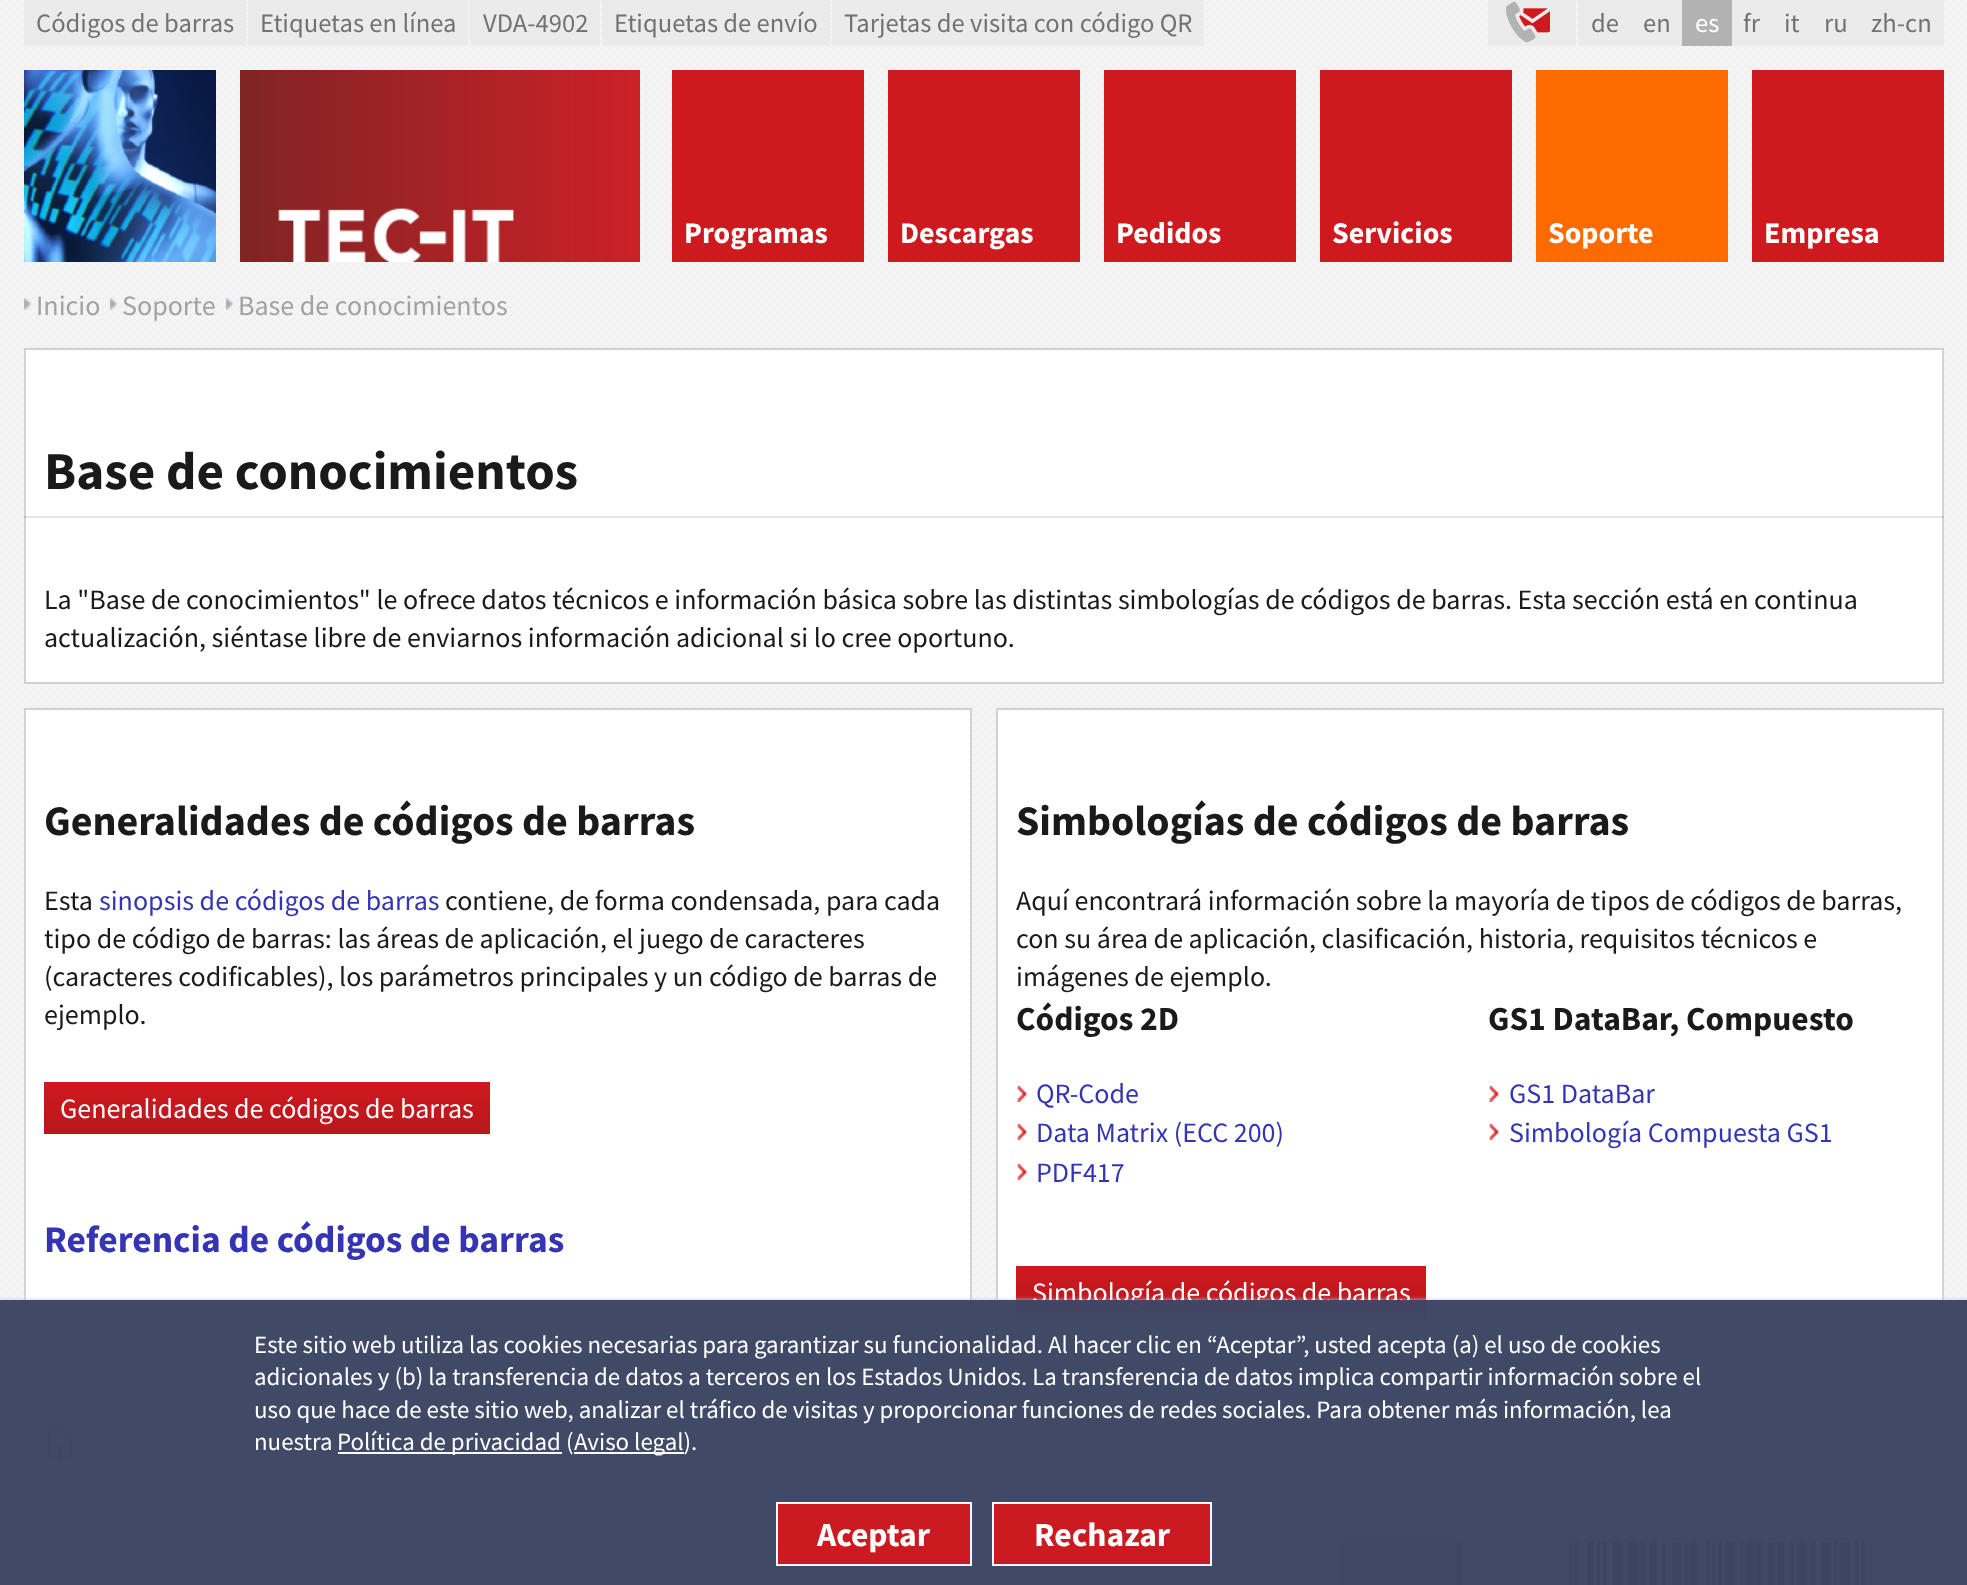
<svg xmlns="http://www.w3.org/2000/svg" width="1967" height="1585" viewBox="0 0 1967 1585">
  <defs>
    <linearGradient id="g1" gradientUnits="userSpaceOnUse" x1="267" y1="1082" x2="267" y2="1134"><stop offset="0" stop-color="#ce191f"/><stop offset="1" stop-color="#b9171c"/></linearGradient>
    <linearGradient id="g2" gradientUnits="userSpaceOnUse" x1="1221" y1="1266" x2="1221" y2="1318"><stop offset="0" stop-color="#ce191f"/><stop offset="1" stop-color="#b9171c"/></linearGradient>
    <clipPath id="clip1"><path d="M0 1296h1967v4H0z"/></clipPath>
  </defs>
  <rect width="100%" height="100%" fill="#fff"/>
  <image x="0" y="0" width="1967" height="1585" href="img/1.png"/>
  <path d="M24 0h222v46H24z" fill="#ebebeb"/>
  <path d="M248 0h220v46H248z" fill="#ebebeb"/>
  <path d="M470 0h130v46H470z" fill="#ebebeb"/>
  <path d="M602 0h228v46H602z" fill="#ebebeb"/>
  <path d="M832 0h372v46H832z" fill="#ebebeb"/>
  <path d="M1488 0h88v46H1488z" fill="#ebebeb"/>
  <image x="1506" y="1" width="44" height="42" href="img/2.png"/>
  <path d="M1578 0h104v46H1578z" fill="#ebebeb"/>
  <path d="M1682 0h50v46H1682z" fill="#b2b2b2"/>
  <path d="M1732 0h212v46H1732z" fill="#ebebeb"/>
  <image x="24" y="70" width="192" height="192" href="img/3.png"/>
  <image x="240" y="70" width="400" height="192" href="img/4.png"/>
  <path d="M672 70h192v192H672z" fill="#ce191f"/>
  <path d="M888 70h192v192H888z" fill="#ce191f"/>
  <path d="M1104 70h192v192H1104z" fill="#ce191f"/>
  <path d="M1320 70h192v192H1320z" fill="#ce191f"/>
  <path d="M1536 70h192v192H1536z" fill="#fd6a00"/>
  <path d="M1752 70h192v192H1752z" fill="#ce191f"/>
  <image x="24" y="298" width="8" height="12" href="img/5.png"/>
  <image x="110" y="298" width="8" height="12" href="img/5.png"/>
  <image x="226" y="298" width="8" height="12" href="img/5.png"/>
  <path d="M25 349h1918v334H25z" fill="#fff" stroke="#d2d2d2" stroke-width="2"/>
  <path d="M24 516h1920v2H24z" fill="#0000001a"/>
  <path d="M25 709h946v788H25z" fill="#fff" stroke="#d2d2d2" stroke-width="2"/>
  <path d="M44 1082h446v52H44z" fill="url(#g1)"/>
  <image x="47" y="1430" width="26" height="32" href="img/6.png"/>
  <path d="M997 709h946v788H997z" fill="#fff" stroke="#d2d2d2" stroke-width="2"/>
  <image x="1017" y="1086" width="10" height="16" href="img/7.png"/>
  <image x="1017" y="1124" width="10" height="16" href="img/7.png"/>
  <image x="1017" y="1164" width="10" height="16" href="img/7.png"/>
  <image x="1489" y="1086" width="10" height="16" href="img/7.png"/>
  <image x="1489" y="1124" width="10" height="16" href="img/7.png"/>
  <path d="M1016 1266h410v52H1016z" fill="url(#g2)"/>
  <path d="M25 1523h1270v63H25z" fill="#fff" stroke="#d2d2d2" stroke-width="2"/>
  <path d="M1321 1523h622v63H1321z" fill="#fff" stroke="#d2d2d2" stroke-width="2"/>
  <image x="1340" y="1542" width="526" height="43" href="img/8.png"/>
  <g clip-path="url(#clip1)">
    <path d="M0 1300h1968v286H0z" fill="#bbcceefa" filter="blur(2px)"/>
  </g>
  <g font-family="Source Sans Pro" font-size="26.6" fill="#727272">
    <text x="36" y="32">Códigos de barras</text>
    <text x="260" y="32">Etiquetas en línea</text>
    <text x="483" y="32">VDA-4902</text>
    <text x="614" y="32">Etiquetas de envío</text>
    <text x="844" y="32">Tarjetas de visita con código QR</text>
    <text x="1591" y="32">de</text>
    <text x="1643" y="32">en</text>
  </g>
  <text x="1695" y="32" font-family="Source Sans Pro" font-size="26.6" fill="#fff">es</text>
  <g font-family="Source Sans Pro" font-size="26.6" fill="#727272">
    <text x="1743" y="32">fr</text>
    <text x="1784" y="32">it</text>
    <text x="1824" y="32">ru</text>
    <text x="1871" y="32">zh-cn</text>
  </g>
  <g font-family="Source Sans Pro" font-size="30" font-weight="bold" fill="#fff">
    <text x="684" y="243">Programas</text>
    <text x="900" y="243">Descargas</text>
    <text x="1116" y="243">Pedidos</text>
    <text x="1332" y="243">Servicios</text>
    <text x="1548" y="243">Soporte</text>
    <text x="1764" y="243">Empresa</text>
  </g>
  <g font-family="Source Sans Pro" font-size="28" fill="#a2a2a2">
    <text x="36" y="315">Inicio</text>
    <text x="122" y="315">Soporte</text>
    <text x="238" y="315">Base de conocimientos</text>
  </g>
  <text x="44" y="489" font-family="Source Sans Pro" font-size="53.25" font-weight="bold" fill="#1a1a1a">Base de conocimientos</text>
  <g font-family="Source Sans Pro" font-size="28" fill="#1a1a1a">
    <text x="44" y="609">La "Base de conocimientos" le ofrece datos técnicos e información básica sobre las distintas simbologías de códigos de barras. Esta sección está en continua</text>
    <text x="44" y="647">actualización, siéntase libre de enviarnos información adicional si lo cree oportuno.</text>
  </g>
  <text x="44" y="835" font-family="Source Sans Pro" font-size="42" font-weight="bold" fill="#1a1a1a">Generalidades de códigos de barras</text>
  <text x="44" y="910" font-family="Source Sans Pro" font-size="28" fill="#1a1a1a">Esta</text>
  <text x="99" y="910" font-family="Source Sans Pro" font-size="28" fill="#3434b4">sinopsis de códigos de barras</text>
  <g font-family="Source Sans Pro" font-size="28" fill="#1a1a1a">
    <text x="445" y="910">contiene, de forma condensada, para cada</text>
    <text x="44" y="948">tipo de código de barras: las áreas de aplicación, el juego de caracteres</text>
    <text x="44" y="986">(caracteres codificables), los parámetros principales y un código de barras de</text>
    <text x="44" y="1024">ejemplo.</text>
  </g>
  <text x="60" y="1118" font-family="Source Sans Pro" font-size="28" fill="#fff">Generalidades de códigos de barras</text>
  <text x="44" y="1252" font-family="Source Sans Pro" font-size="37.5" font-weight="bold" fill="#3434b4">Referencia de códigos de barras</text>
  <text x="1016" y="835" font-family="Source Sans Pro" font-size="42" font-weight="bold" fill="#1a1a1a">Simbologías de códigos de barras</text>
  <g font-family="Source Sans Pro" font-size="28" fill="#1a1a1a">
    <text x="1016" y="910">Aquí encontrará información sobre la mayoría de tipos de códigos de barras,</text>
    <text x="1016" y="948">con su área de aplicación, clasificación, historia, requisitos técnicos e</text>
    <text x="1016" y="986">imágenes de ejemplo.</text>
  </g>
  <text x="1016" y="1030" font-family="Source Sans Pro" font-size="33.6" font-weight="bold" fill="#1a1a1a">Códigos 2D</text>
  <g font-family="Source Sans Pro" font-size="28" fill="#3434b4">
    <text x="1036" y="1103">QR-Code</text>
    <text x="1036" y="1142">Data Matrix (ECC 200)</text>
    <text x="1036" y="1182">PDF417</text>
  </g>
  <text x="1488" y="1030" font-family="Source Sans Pro" font-size="33.6" font-weight="bold" fill="#1a1a1a">GS1 DataBar, Compuesto</text>
  <g font-family="Source Sans Pro" font-size="28" fill="#3434b4">
    <text x="1509" y="1103">GS1 DataBar</text>
    <text x="1509" y="1142">Simbología Compuesta GS1</text>
  </g>
  <text x="1032" y="1302" font-family="Source Sans Pro" font-size="28" fill="#fff">Simbología de códigos de barras</text>
  <path d="M0 1300h1967v285H0z" fill="#3c4664fa"/>
  <g font-family="Source Sans Pro" font-size="24.92" fill="#fff">
    <text x="254" y="1353">Este sitio web utiliza las cookies necesarias para garantizar su funcionalidad. Al hacer clic en “Aceptar”, usted acepta (a) el uso de cookies</text>
    <text x="254" y="1385">adicionales y (b) la transferencia de datos a terceros en los Estados Unidos. La transferencia de datos implica compartir información sobre el</text>
    <text x="254" y="1418">uso que hace de este sitio web, analizar el tráfico de visitas y proporcionar funciones de redes sociales. Para obtener más información, lea</text>
    <text x="254" y="1450">nuestra</text>
  </g>
  <path d="M338 1452h224v2H338z" fill="#fffffffa"/>
  <g font-family="Source Sans Pro" font-size="24.92" fill="#fff">
    <text x="337" y="1450">Política de privacidad</text>
    <text x="566" y="1450">(</text>
  </g>
  <path d="M574 1452h110v2H574z" fill="#fff"/>
  <text x="574" y="1450" font-family="Source Sans Pro" font-size="24.92" fill="#fff">Aviso legal).</text>
  <path d="M777 1503h194v62H777z" fill="#cb1a20" stroke="#fefafb" stroke-width="2"/>
  <text x="817" y="1546" font-family="Source Sans Pro" font-size="33.6" font-weight="bold" fill="#fff">Aceptar</text>
  <path d="M993 1503h218v62H993z" fill="#cb1a20" stroke="#fefafb" stroke-width="2"/>
  <text x="1034" y="1546" font-family="Source Sans Pro" font-size="33.6" font-weight="bold" fill="#fff">Rechazar</text>
</svg>
